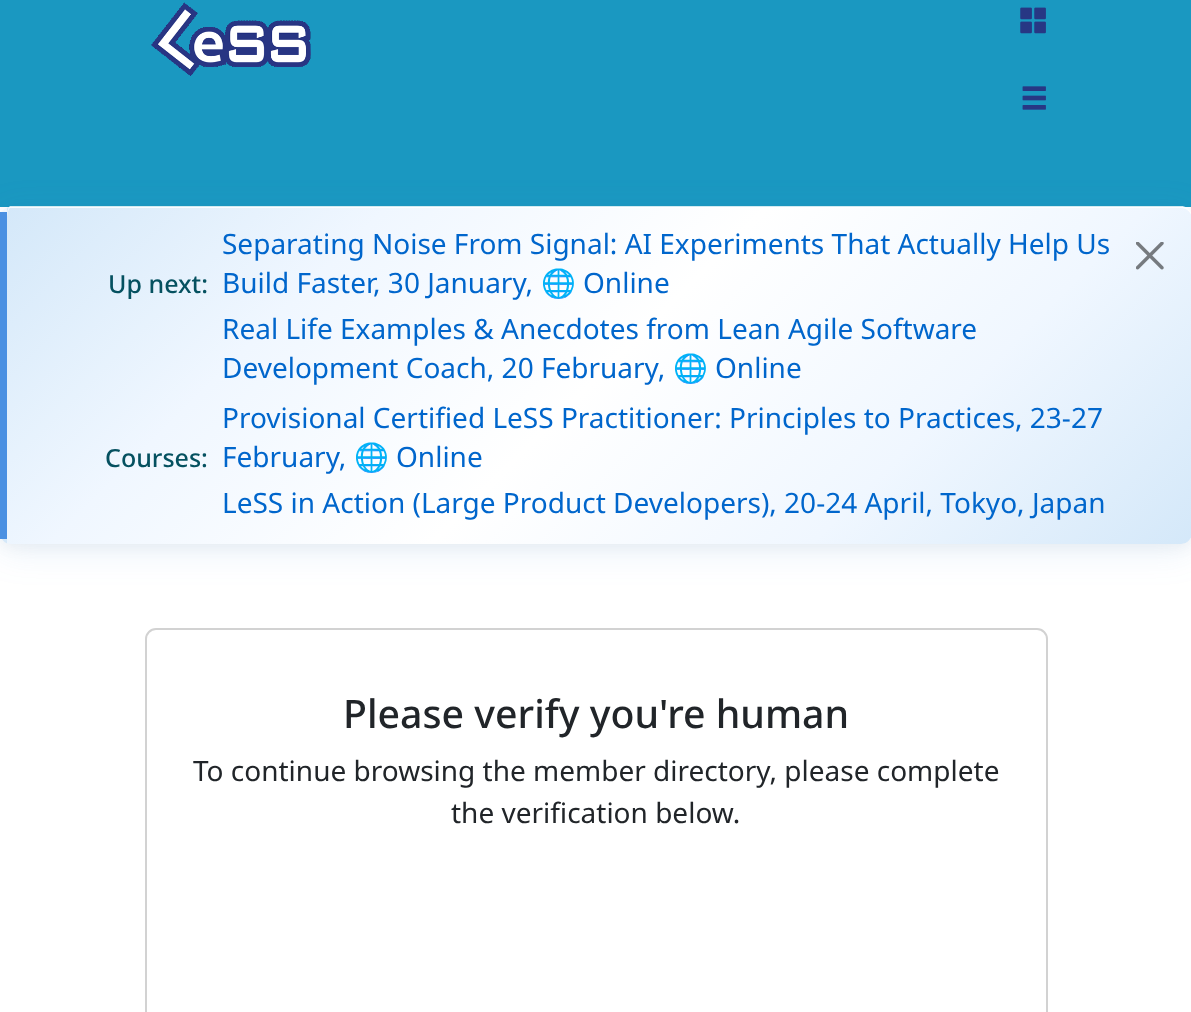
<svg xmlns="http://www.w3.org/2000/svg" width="1191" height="1012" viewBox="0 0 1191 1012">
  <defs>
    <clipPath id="clip1"><rect y="207" width="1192" height="337" rx="11"/></clipPath>
    <linearGradient id="g1" gradientUnits="userSpaceOnUse" x1="-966" y1="-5.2" x2="-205" y2="756"><stop offset="0" stop-color="#d4e8f9"/><stop offset="0.25" stop-color="#f0f7ff"/><stop offset="0.5" stop-color="#fff"/><stop offset="0.75" stop-color="#f0f7ff"/><stop offset="1" stop-color="#d4e8f9"/></linearGradient>
    <linearGradient id="g2" gradientUnits="userSpaceOnUse" x1="219" y1="-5.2" x2="980" y2="756"><stop offset="0" stop-color="#d4e8f9"/><stop offset="0.25" stop-color="#f0f7ff"/><stop offset="0.5" stop-color="#fff"/><stop offset="0.75" stop-color="#f0f7ff"/><stop offset="1" stop-color="#d4e8f9"/></linearGradient>
  </defs>
  <rect width="100%" height="100%" fill="#fff"/>
  <path d="M0 0h1191v207H0z" fill="#1a98c1"/>
  <image x="151" y="2" width="160" height="74" href="img/1.png"/>
  <image x="1020" y="7" width="26" height="27" href="img/2.png"/>
  <image x="1022" y="86" width="24" height="24" href="img/3.png"/>
  <rect y="210" width="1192" height="338" rx="11" fill="#0000000a" filter="blur(7px)"/>
  <rect y="214" width="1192" height="337" rx="11" fill="#4a90e21f" filter="blur(17.5px)"/>
  <g clip-path="url(#clip1)">
    <path d="M1 207h6v337H1z" fill="url(#g1)"/>
    <path d="M7 207H1181C1187 207 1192 212 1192 218V533C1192 539 1187 544 1181 544H7Z" fill="url(#g2)"/>
  </g>
  <path d="M10 208H1181C1186 208 1191 212 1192 217C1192 211 1187 206 1181 206H10C9 206 7 211 7 217V219C7 213 9 208 10 208Z" fill="#ffffffcc"/>
  <path d="M0 212h7v327H0z" fill="#4a90e2"/>
  <image x="1136" y="242" width="28" height="28" href="img/4.png"/>
  <rect x="146" y="629" width="901" height="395" rx="10" fill="none" stroke="#d2d2d2" stroke-width="2"/>
  <text x="108" y="293" font-family="Noto Sans" font-size="25" font-weight="500" fill="#055160">Up next:</text>
  <g font-family="Noto Sans" font-size="28" fill="#06c">
    <text x="222" y="254">Separating Noise From Signal: AI Experiments That Actually Help Us</text>
    <text x="222" y="293">Build Faster, 30 January,</text>
  </g>
  <text x="541" y="293" font-family="Noto Color Emoji" font-size="28" fill="#06c">🌐</text>
  <g font-family="Noto Sans" font-size="28" fill="#06c">
    <text x="583" y="293">Online</text>
    <text x="222" y="339">Real Life Examples &amp; Anecdotes from Lean Agile Software</text>
    <text x="222" y="378">Development Coach, 20 February,</text>
  </g>
  <text x="673" y="378" font-family="Noto Color Emoji" font-size="28" fill="#06c">🌐</text>
  <text x="715" y="378" font-family="Noto Sans" font-size="28" fill="#06c">Online</text>
  <text x="105" y="467" font-family="Noto Sans" font-size="25" font-weight="500" fill="#055160">Courses:</text>
  <g font-family="Noto Sans" font-size="28" fill="#06c">
    <text x="222" y="428">Provisional Certified LeSS Practitioner: Principles to Practices, 23-27</text>
    <text x="222" y="467">February,</text>
  </g>
  <text x="354" y="467" font-family="Noto Color Emoji" font-size="28" fill="#06c">🌐</text>
  <g font-family="Noto Sans" font-size="28" fill="#06c">
    <text x="396" y="467">Online</text>
    <text x="222" y="513">LeSS in Action (Large Product Developers), 20-24 April, Tokyo, Japan</text>
  </g>
  <text x="343" y="728" font-family="Noto Sans" font-size="39.25" font-weight="500" fill="#212529">Please verify you're human</text>
  <g font-family="Noto Sans" font-size="28" fill="#212529">
    <text x="193" y="781">To continue browsing the member directory, please complete</text>
    <text x="451" y="823">the verification below.</text>
  </g>
</svg>
